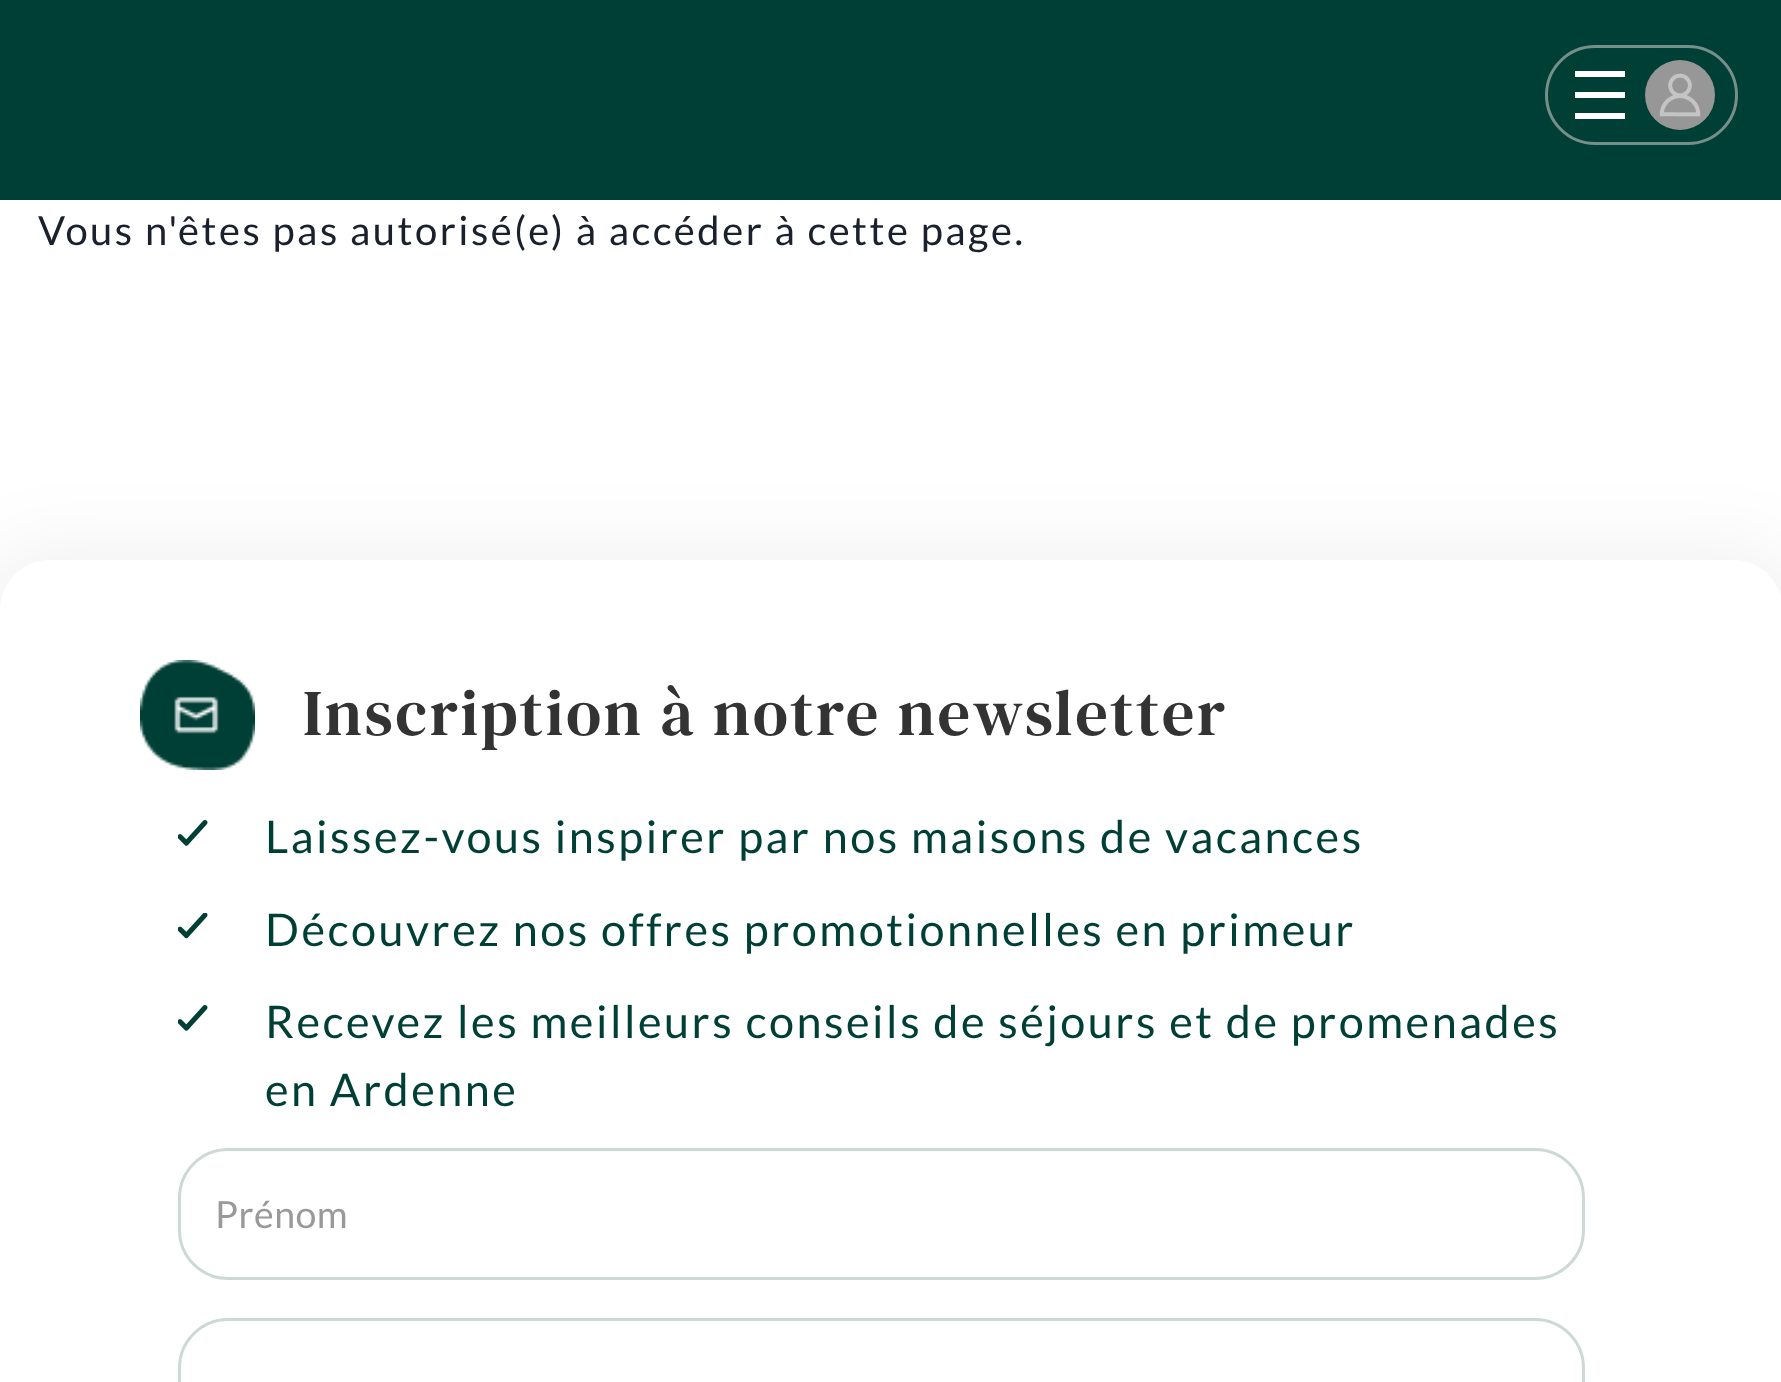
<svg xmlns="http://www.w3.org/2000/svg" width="1781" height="1382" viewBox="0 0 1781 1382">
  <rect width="100%" height="100%" fill="#fff"/>
  <path d="M0 0h1781v200H0z" fill="#003f35"/>
  <rect x="1546.5" y="46.5" width="190" height="97" rx="48.5" fill="none" stroke="#768f8b" stroke-width="3"/>
  <path d="M1575 71h50v6H1575z" fill="#fff"/>
  <path d="M1575 92h50v6H1575z" fill="#fff"/>
  <path d="M1575 113h50v6H1575z" fill="#fff"/>
  <circle cx="1680" cy="95" r="35" fill="#979797"/>
  <image x="1659" y="73" width="42" height="44" href="img/1.png"/>
  <rect x="-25" y="545" width="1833" height="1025" rx="75" fill="#0000000d" filter="blur(37.5px)"/>
  <path d="M50 560H1733C1760.5 560 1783 582.5 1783 610V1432H0V610C0 582.5 22.5 560 50 560Z" fill="#fff"/>
  <image x="140" y="660" width="115" height="110" href="img/2.png"/>
  <image x="178" y="820" width="30" height="26" href="img/3.png"/>
  <image x="178" y="913" width="30" height="26" href="img/4.png"/>
  <image x="178" y="1005" width="30" height="26" href="img/3.png"/>
  <rect x="179.5" y="1149.5" width="1404" height="129" rx="48.5" fill="none" stroke="#ccd9d7" stroke-width="3"/>
  <rect x="179.5" y="1319.5" width="1404" height="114" rx="48.5" fill="none" stroke="#ccd9d7" stroke-width="3"/>
  <text x="38" y="245" font-family="Lato" font-size="40" letter-spacing="2.5" fill="#1a202c">Vous n'êtes pas autorisé(e) à accéder à cette page.</text>
  <text x="303" y="735" font-family="DM Serif Text" font-size="65" letter-spacing="2.5" fill="#333">Inscription à notre newsletter</text>
  <g font-family="Lato" font-size="45" letter-spacing="2.5" fill="#003f35">
    <text x="265" y="853">Laissez-vous inspirer par nos maisons de vacances</text>
    <text x="265" y="946">Découvrez nos offres promotionnelles en primeur</text>
    <text x="265" y="1038">Recevez les meilleurs conseils de séjours et de promenades</text>
    <text x="265" y="1106">en Ardenne</text>
  </g>
  <text x="215" y="1228" font-family="Lato" font-size="37.5" letter-spacing="0.5" fill="#999">Prénom</text>
</svg>
